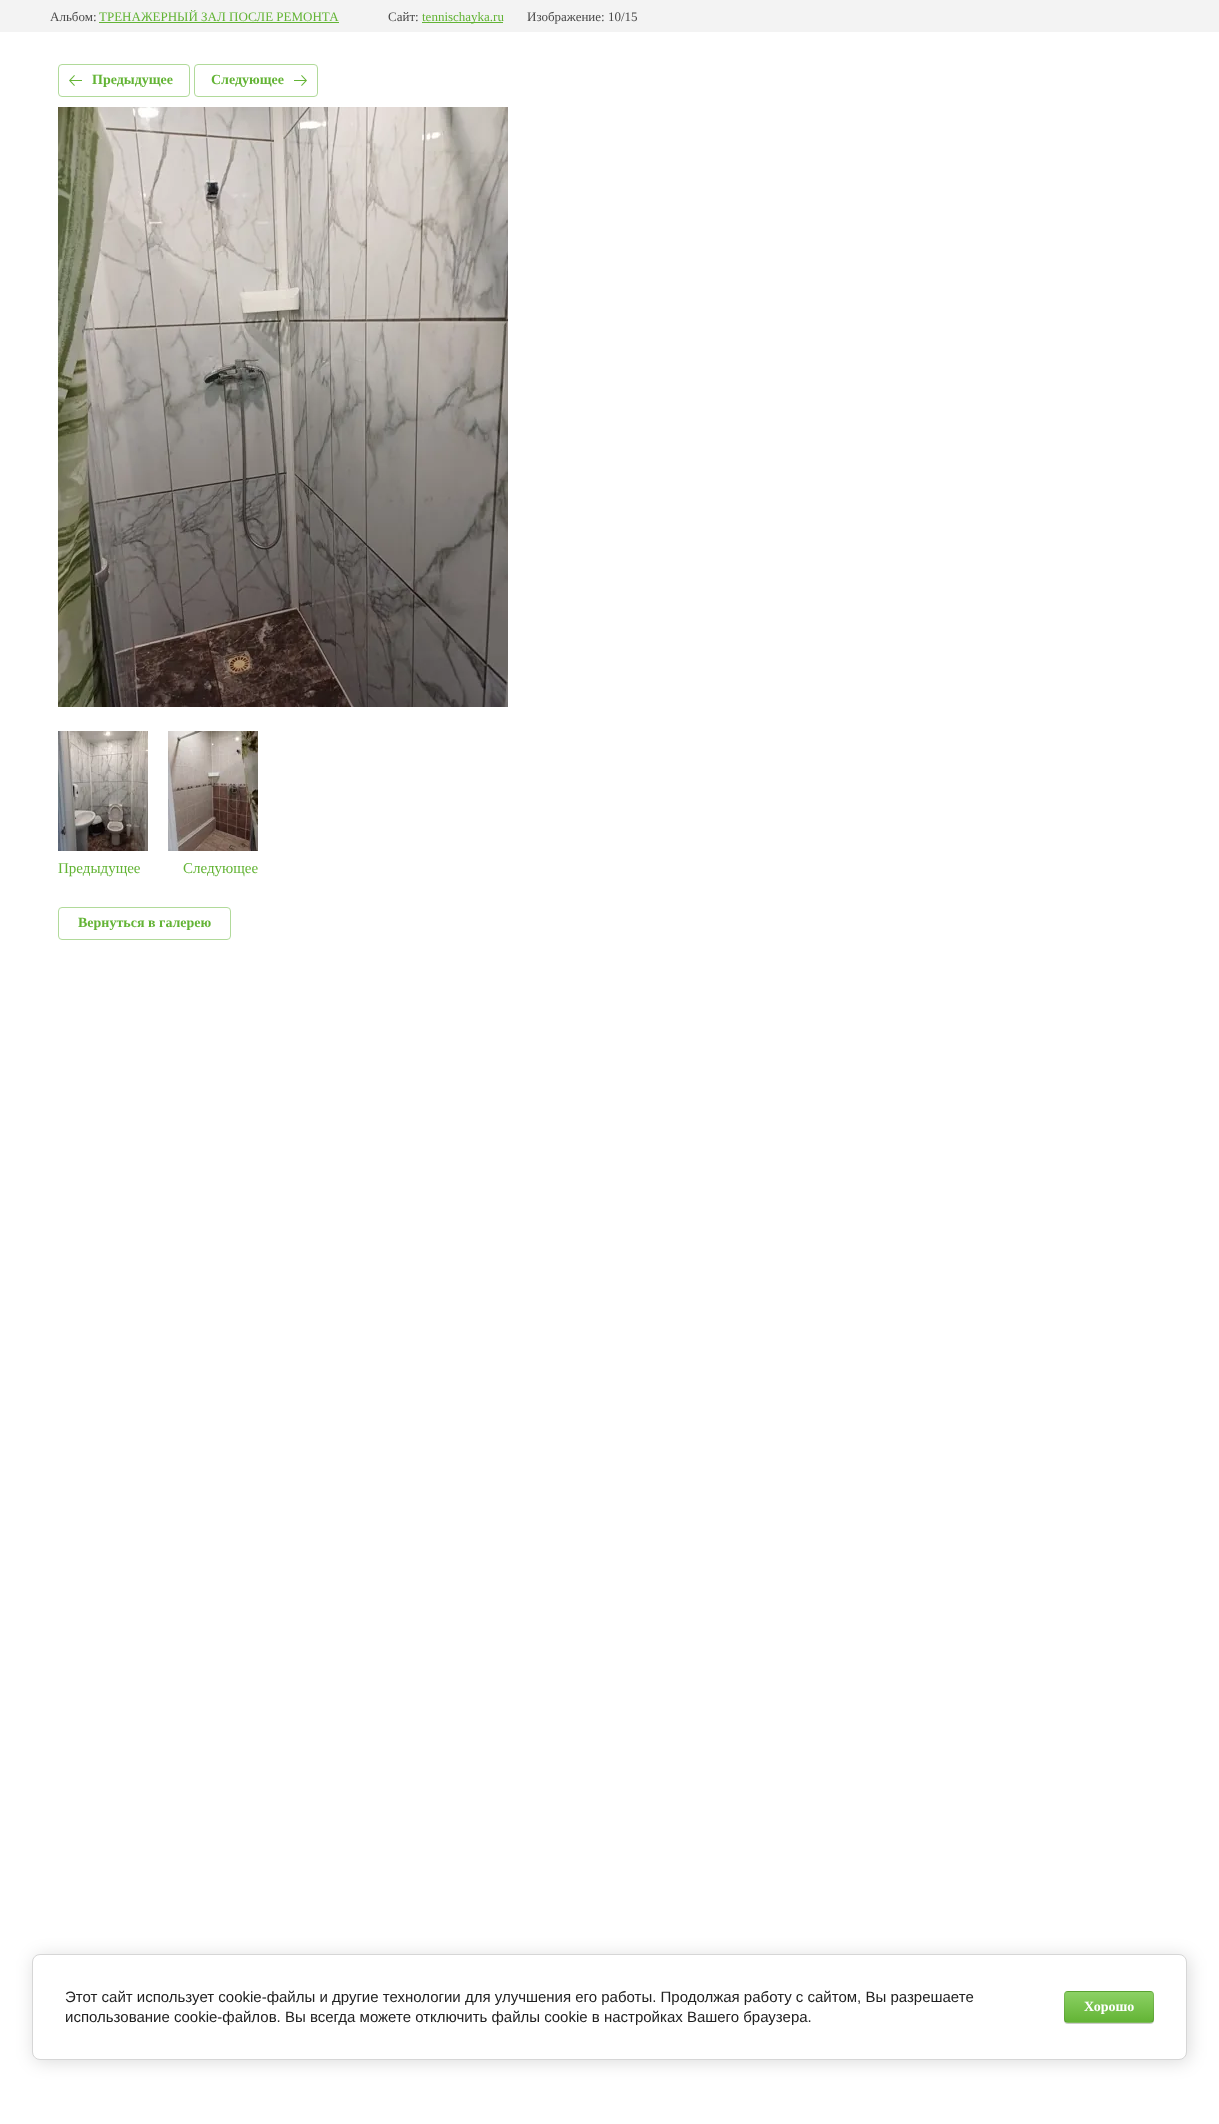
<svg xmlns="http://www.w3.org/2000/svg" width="1219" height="2124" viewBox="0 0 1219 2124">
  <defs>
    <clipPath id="clip1"><rect x="1064" y="1991" width="90" height="32" rx="4"/></clipPath>
    <linearGradient id="g1" gradientUnits="userSpaceOnUse" x1="1109" y1="1962" x2="1109" y2="1992"><stop offset="0" stop-color="#8cd164"/><stop offset="1" stop-color="#63b435"/></linearGradient>
    <linearGradient id="g2" gradientUnits="userSpaceOnUse" x1="1109" y1="1992" x2="1109" y2="2022"><stop offset="0" stop-color="#8cd164"/><stop offset="1" stop-color="#63b435"/></linearGradient>
    <linearGradient id="g3" gradientUnits="userSpaceOnUse" x1="1109" y1="2022" x2="1109" y2="2052"><stop offset="0" stop-color="#8cd164"/><stop offset="1" stop-color="#63b435"/></linearGradient>
  </defs>
  <rect width="100%" height="100%" fill="#fff"/>
  <path d="M0 0h1219v32H0z" fill="#f3f3f3"/>
  <path d="M99 22h240v1H99z" fill="#63b435"/>
  <path d="M422 22h81v1H422z" fill="#63b435"/>
  <rect x="58.5" y="64.5" width="131" height="32" rx="3.5" fill="none" stroke="#b1da9a"/>
  <image x="69" y="75" width="13" height="11" href="img/1.png"/>
  <rect x="194.5" y="64.5" width="123" height="32" rx="3.5" fill="none" stroke="#b1da9a"/>
  <image x="294" y="75" width="13" height="11" href="img/2.png"/>
  <image x="58" y="107" width="450" height="600" href="img/3.png"/>
  <image x="58" y="731" width="90" height="120" href="img/4.png"/>
  <image x="168" y="731" width="90" height="120" href="img/5.png"/>
  <rect x="58.5" y="907.5" width="172" height="32" rx="3.5" fill="none" stroke="#b1da9a"/>
  <rect x="34" y="1956" width="1155" height="106" rx="8" fill="#00000024" filter="blur(9px)"/>
  <rect x="32.5" y="1954.5" width="1154" height="105" rx="7.5" fill="#fff" stroke="#d6d6d6"/>
  <rect x="1064" y="1992" width="90" height="32" rx="4" fill="#00000033" filter="blur(0.5px)"/>
  <g clip-path="url(#clip1)">
    <path d="M1064 1991h90v1H1064z" fill="url(#g1)"/>
    <path d="M1064 1992h90v30H1064z" fill="url(#g2)"/>
    <path d="M1064 2022h90v1H1064z" fill="url(#g3)"/>
  </g>
  <rect x="1064.5" y="1991.5" width="89" height="31" rx="3.5" fill="none" stroke="#0000001a"/>
  <text x="50" y="21" font-family="Liberation Serif" font-size="13" fill="#484848">Альбом:</text>
  <text x="99" y="21" font-family="Liberation Serif" font-size="13" fill="#63b435">ТРЕНАЖЕРНЫЙ ЗАЛ ПОСЛЕ РЕМОНТА</text>
  <text x="388" y="21" font-family="Liberation Serif" font-size="13" fill="#484848">Сайт:</text>
  <text x="422" y="21" font-family="Liberation Serif" font-size="13" fill="#63b435">tennischayka.ru</text>
  <text x="527" y="21" font-family="Liberation Serif" font-size="13" fill="#484848">Изображение: 10/15</text>
  <g font-family="Liberation Serif" font-size="14" font-weight="bold" fill="#63b435">
    <text x="92" y="84">Предыдущее</text>
    <text x="211" y="84">Следующее</text>
  </g>
  <g font-family="Liberation Serif" font-size="15" fill="#63b435">
    <text x="58" y="873">Предыдущее</text>
    <text x="183" y="873">Следующее</text>
  </g>
  <text x="78" y="927" font-family="Liberation Serif" font-size="14" font-weight="bold" fill="#63b435">Вернуться в галерею</text>
  <g font-family="Liberation Sans" font-size="15" fill="#212121">
    <text x="65" y="2002">Этот сайт использует cookie-файлы и другие технологии для улучшения его работы. Продолжая работу с сайтом, Вы разрешаете</text>
    <text x="65" y="2022">использование cookie-файлов. Вы всегда можете отключить файлы cookie в настройках Вашего браузера.</text>
  </g>
  <text x="1084" y="2011" font-family="Liberation Serif" font-size="14" font-weight="bold" fill="#fff">Хорошо</text>
</svg>
